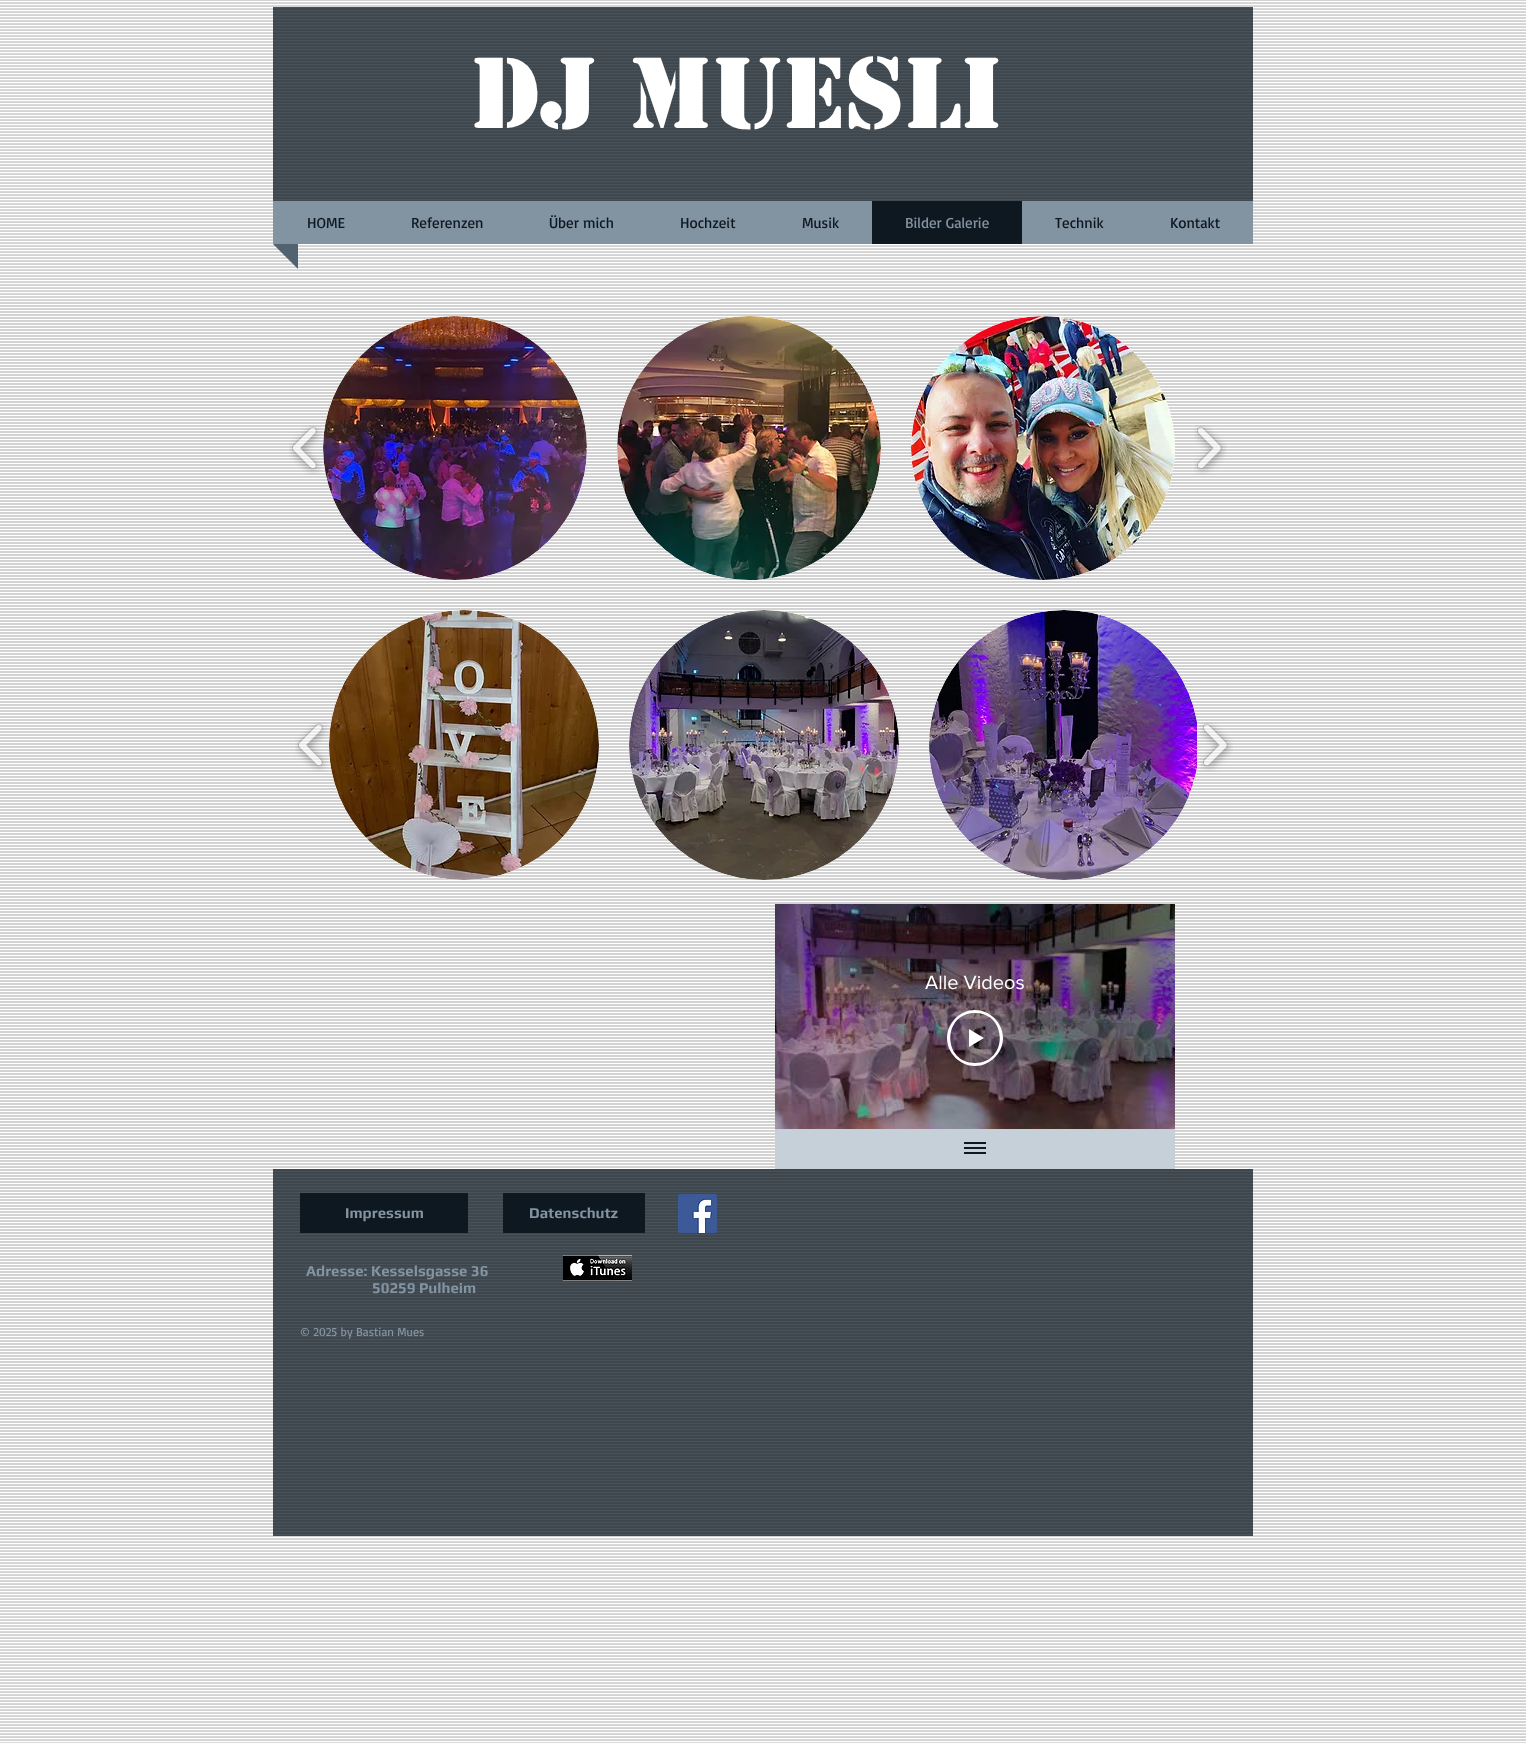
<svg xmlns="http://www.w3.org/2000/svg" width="1526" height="1743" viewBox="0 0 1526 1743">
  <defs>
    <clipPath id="clip1"><path d="M329 610h868v270H329z"/></clipPath>
  </defs>
  <rect width="100%" height="100%" fill="#fff"/>
  <image x="0" y="0" width="1526" height="1743" href="img/1.png"/>
  <path d="M273 7h980v194H273z" fill="#0e1821bf"/>
  <path d="M273 201h980v43H273z" fill="#8293a1"/>
  <path d="M872 201h150v43H872z" fill="#0e1821"/>
  <path d="M273 244H298V269Z" fill="#516371"/>
  <image x="289" y="425" width="33" height="50" href="img/2.png"/>
  <circle cx="455" cy="448" r="132" fill="#fff"/>
  <image x="323" y="316" width="264" height="264" href="img/3.png"/>
  <circle cx="749" cy="448" r="132" fill="#fff"/>
  <image x="617" y="316" width="264" height="264" href="img/4.png"/>
  <circle cx="1043" cy="448" r="132" fill="#fff"/>
  <image x="911" y="316" width="264" height="264" href="img/5.png"/>
  <image x="1194" y="425" width="33" height="50" href="img/6.png"/>
  <image x="295" y="722" width="33" height="50" href="img/7.png"/>
  <circle cx="464" cy="745" r="135" fill="#fff"/>
  <image x="329" y="610" width="270" height="270" href="img/8.png"/>
  <circle cx="764" cy="745" r="135" fill="#fff"/>
  <image x="629" y="610" width="270" height="270" href="img/9.png"/>
  <g clip-path="url(#clip1)">
    <circle cx="1064" cy="745" r="135" fill="#fff"/>
  </g>
  <image x="929" y="610" width="268" height="270" href="img/10.png"/>
  <image x="1200" y="722" width="33" height="50" href="img/11.png"/>
  <image x="775" y="904" width="400" height="225" href="img/12.png"/>
  <path d="M975 1063C1008 1063 1008 1013 975 1013C942 1013 942 1063 975 1063ZM975 1066C960 1066 947 1053 947 1038C947 1023 960 1010 975 1010C990 1010 1003 1023 1003 1038C1003 1053 990 1066 975 1066Z" fill="#fff" fill-rule="evenodd"/>
  <path d="M984 1038L969 1047V1029Z" fill="#fff" fill-rule="evenodd"/>
  <path d="M775 1129h400v40H775z" fill="#c5d0d9"/>
  <image x="964" y="1142" width="22" height="12" href="img/13.png"/>
  <path d="M273 1169h980v367H273z" fill="#0e1821bf"/>
  <path d="M300 1193h168v40H300z" fill="#0e1821"/>
  <path d="M503 1193h142v40H503z" fill="#0e1821"/>
  <image x="678" y="1194" width="39" height="39" href="img/14.png"/>
  <image x="563" y="1255" width="69" height="26" href="img/15.png"/>
  <text x="472" y="128" font-family="'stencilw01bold'" font-size="94" font-weight="bold" fill="#fff">DJ Muesli</text>
  <g font-family="Basic" font-size="15" fill="#0e1821">
    <text x="307" y="228">HOME</text>
    <text x="411" y="228">Referenzen</text>
    <text x="549" y="228">Über mich</text>
    <text x="680" y="228">Hochzeit</text>
    <text x="802" y="228">Musik</text>
  </g>
  <text x="905" y="228" font-family="Basic" font-size="15" fill="#8293a1">Bilder Galerie</text>
  <g font-family="Basic" font-size="15" fill="#0e1821">
    <text x="1055" y="228">Technik</text>
    <text x="1170" y="228">Kontakt</text>
  </g>
  <text x="925" y="989" font-family="'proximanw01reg'" font-size="20" fill="#fff">Alle Videos</text>
  <g font-family="Play" font-size="15" font-weight="bold" fill="#8293a1">
    <text x="345" y="1218">Impressum</text>
    <text x="529" y="1218">Datenschutz</text>
    <text x="306" y="1276">Adresse: Kesselsgasse 36</text>
    <text x="372" y="1293">50259 Pulheim</text>
  </g>
  <text x="300" y="1336" font-family="Basic" font-size="12" fill="#8293a1">© 2025 by Bastian Mues</text>
</svg>
